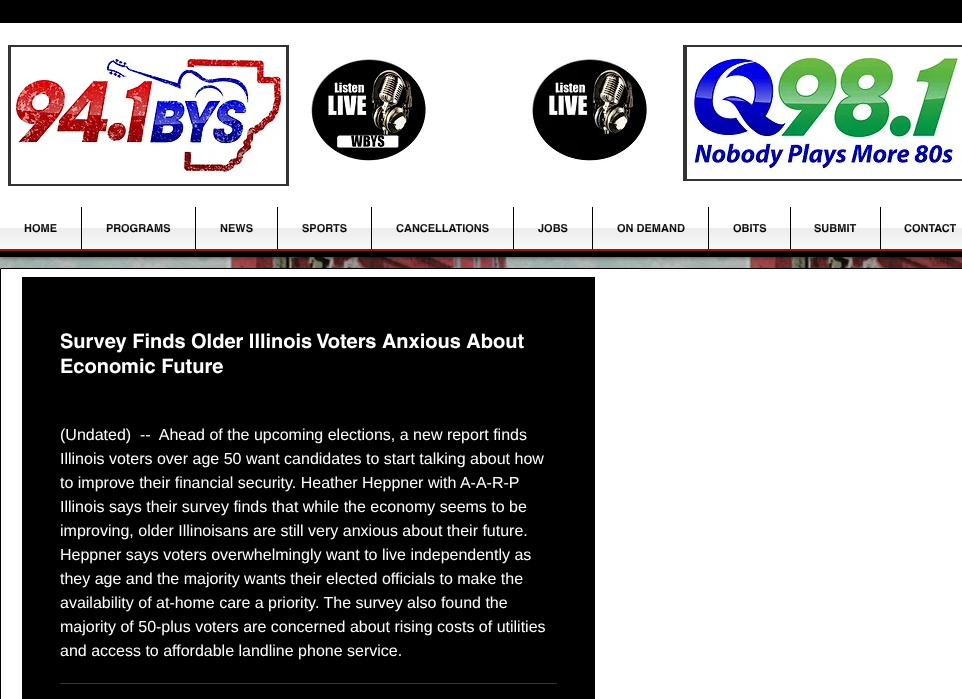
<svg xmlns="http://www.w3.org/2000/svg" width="962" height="699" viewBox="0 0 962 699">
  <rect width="100%" height="100%" fill="#fff"/>
  <image x="0" y="257" width="962" height="11" href="img/15.png"/>
  <path d="M0 -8h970v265H0z" fill="#000000b3" filter="blur(2.5px)"/>
  <path d="M0 0h962v257H0z" fill="#000"/>
  <path d="M0 249h962v2H0z" fill="#991616"/>
  <path d="M0 23h962v184H0z" fill="#fff"/>
  <path d="M8 45h281v141H8z" fill="#333"/>
  <image x="11" y="47" width="275" height="137" href="img/1.png"/>
  <image x="311" y="59" width="115" height="102" href="img/2.png"/>
  <image x="530" y="57" width="120" height="104" href="img/3.png"/>
  <path d="M683 45h279v136H683z" fill="#333"/>
  <image x="687" y="47" width="275" height="132" href="img/4.png"/>
  <path d="M0 207h81v42H0z" fill="#fff"/>
  <path d="M82 207h113v42H82z" fill="#fff"/>
  <path d="M196 207h81v42H196z" fill="#fff"/>
  <path d="M278 207h93v42H278z" fill="#fff"/>
  <path d="M372 207h141v42H372z" fill="#fff"/>
  <path d="M514 207h78v42H514z" fill="#fff"/>
  <path d="M593 207h115v42H593z" fill="#fff"/>
  <path d="M709 207h81v42H709z" fill="#fff"/>
  <path d="M791 207h89v42H791z" fill="#fff"/>
  <path d="M881 207h81v42H881z" fill="#fff"/>
  <path d="M0.5 268.5h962v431H0.5z" fill="none" stroke="#000"/>
  <path d="M22 277h573v422H22z" fill="#000"/>
  <path d="M60 683h497v1H60z" fill="#333"/>
  <text x="24" y="232" font-family="helvetica" font-size="11" font-weight="bold" fill="#000">HOME</text>
  <image x="0" y="224" width="81" height="25" href="img/5.png"/>
  <text x="106" y="232" font-family="helvetica" font-size="11" font-weight="bold" fill="#000">PROGRAMS</text>
  <image x="82" y="224" width="113" height="25" href="img/6.png"/>
  <text x="220" y="232" font-family="helvetica" font-size="11" font-weight="bold" fill="#000">NEWS</text>
  <image x="196" y="224" width="81" height="25" href="img/7.png"/>
  <text x="302" y="232" font-family="helvetica" font-size="11" font-weight="bold" fill="#000">SPORTS</text>
  <image x="278" y="224" width="93" height="25" href="img/8.png"/>
  <text x="396" y="232" font-family="helvetica" font-size="11" font-weight="bold" fill="#000">CANCELLATIONS</text>
  <image x="372" y="224" width="141" height="25" href="img/9.png"/>
  <text x="538" y="232" font-family="helvetica" font-size="11" font-weight="bold" fill="#000">JOBS</text>
  <image x="514" y="224" width="78" height="25" href="img/10.png"/>
  <text x="617" y="232" font-family="helvetica" font-size="11" font-weight="bold" fill="#000">ON DEMAND</text>
  <image x="593" y="224" width="115" height="25" href="img/11.png"/>
  <text x="733" y="232" font-family="helvetica" font-size="11" font-weight="bold" fill="#000">OBITS</text>
  <image x="709" y="224" width="81" height="25" href="img/12.png"/>
  <text x="814" y="232" font-family="helvetica" font-size="11" font-weight="bold" fill="#000">SUBMIT</text>
  <image x="791" y="224" width="89" height="25" href="img/13.png"/>
  <text x="904" y="232" font-family="helvetica" font-size="11" font-weight="bold" fill="#000">CONTACT</text>
  <image x="881" y="224" width="81" height="25" href="img/14.png"/>
  <g font-family="helvetica" font-size="20" font-weight="bold" fill="#fff">
    <text x="60" y="348">Survey Finds Older Illinois Voters Anxious About</text>
    <text x="60" y="373">Economic Future</text>
  </g>
  <g font-family="Liberation Sans" font-size="16" fill="#fff">
    <text x="60" y="440" xml:space="preserve">(Undated)  --  Ahead of the upcoming elections, a new report finds</text>
    <text x="60" y="464">Illinois voters over age 50 want candidates to start talking about how</text>
    <text x="60" y="488">to improve their financial security. Heather Heppner with A-A-R-P</text>
    <text x="60" y="512">Illinois says their survey finds that while the economy seems to be</text>
    <text x="60" y="536">improving, older Illinoisans are still very anxious about their future.</text>
    <text x="60" y="560">Heppner says voters overwhelmingly want to live independently as</text>
    <text x="60" y="584">they age and the majority wants their elected officials to make the</text>
    <text x="60" y="608">availability of at-home care a priority. The survey also found the</text>
    <text x="60" y="632">majority of 50-plus voters are concerned about rising costs of utilities</text>
    <text x="60" y="656">and access to affordable landline phone service.</text>
  </g>
</svg>
